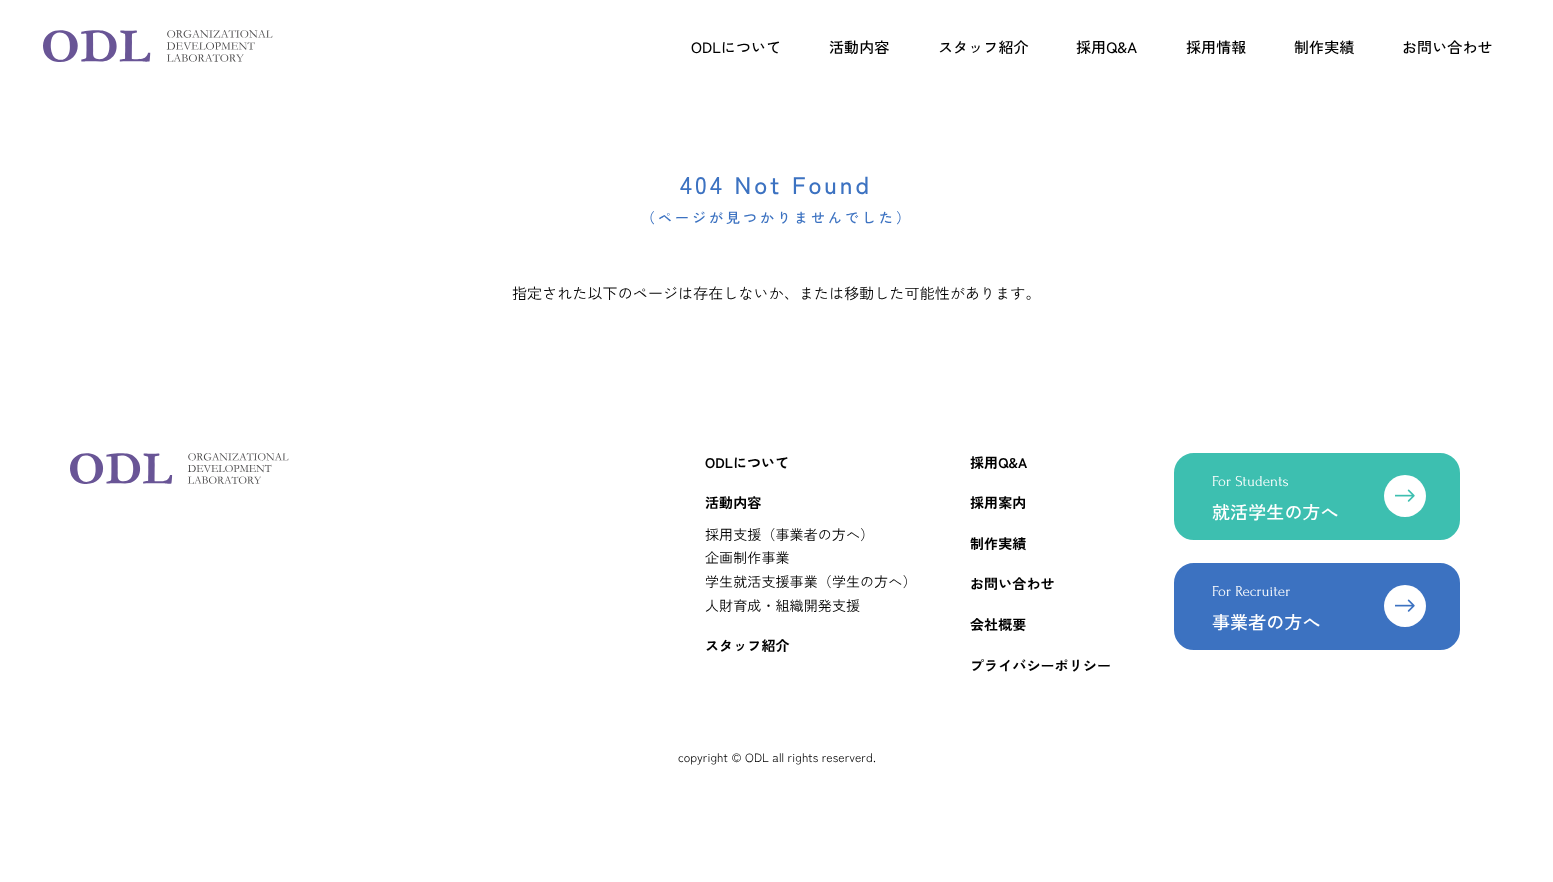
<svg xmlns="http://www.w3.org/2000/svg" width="1553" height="882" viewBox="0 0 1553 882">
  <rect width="100%" height="100%" fill="#fff"/>
  <image x="43" y="30" width="230" height="32" href="img/1.png"/>
  <image x="70" y="453" width="219" height="31" href="img/2.png"/>
  <rect x="1175.5" y="454.5" width="283" height="84" rx="18.5" fill="#3dbfb0" stroke="#3dbfb0" stroke-width="3"/>
  <circle cx="1405" cy="496" r="21" fill="#fff"/>
  <image x="1395" y="489" width="20" height="13" href="img/3.png"/>
  <rect x="1175.5" y="564.5" width="283" height="84" rx="18.5" fill="#3c72c1" stroke="#3c72c1" stroke-width="3"/>
  <circle cx="1405" cy="606" r="21" fill="#fff"/>
  <image x="1395" y="599" width="20" height="13" href="img/4.png"/>
  <g font-family="Zen Kaku Gothic New" font-size="15" font-weight="500" letter-spacing="0.1" fill="#000">
    <text x="691" y="53">ODLについて</text>
    <text x="829" y="53">活動内容</text>
    <text x="938" y="53">スタッフ紹介</text>
    <text x="1076" y="53">採用Q&amp;A</text>
    <text x="1186" y="53">採用情報</text>
    <text x="1294" y="53">制作実績</text>
    <text x="1402" y="53">お問い合わせ</text>
  </g>
  <text x="680" y="194" font-family="Zen Kaku Gothic New" font-size="24" font-weight="500" letter-spacing="3" fill="#3c72c1">404 Not Found</text>
  <text x="641" y="223" font-family="Zen Kaku Gothic New" font-size="14" font-weight="500" letter-spacing="3" fill="#3c72c1">（ページが見つかりませんでした）</text>
  <text x="512" y="299" font-family="Zen Kaku Gothic New" font-size="15" letter-spacing="0.1" fill="#000">指定された以下のページは存在しないか、または移動した可能性があります。</text>
  <g font-family="Zen Kaku Gothic New" font-size="14" font-weight="bold" letter-spacing="0.1" fill="#000">
    <text x="705" y="468">ODLについて</text>
    <text x="705" y="508">活動内容</text>
  </g>
  <g font-family="Zen Kaku Gothic New" font-size="14" letter-spacing="0.1" fill="#000">
    <text x="705" y="540">採用支援（事業者の方へ）</text>
    <text x="705" y="563">企画制作事業</text>
    <text x="705" y="587">学生就活支援事業（学生の方へ）</text>
    <text x="705" y="611">人財育成・組織開発支援</text>
  </g>
  <g font-family="Zen Kaku Gothic New" font-size="14" font-weight="bold" letter-spacing="0.1" fill="#000">
    <text x="705" y="651">スタッフ紹介</text>
    <text x="970" y="468">採用Q&amp;A</text>
    <text x="970" y="508">採用案内</text>
    <text x="970" y="549">制作実績</text>
    <text x="970" y="589">お問い合わせ</text>
    <text x="970" y="630">会社概要</text>
    <text x="970" y="671">プライバシーポリシー</text>
  </g>
  <text x="1212" y="486" font-family="Forum" font-size="15" letter-spacing="0.1" fill="#fff">For Students</text>
  <text x="1212" y="519" font-family="Zen Kaku Gothic New" font-size="18" font-weight="500" letter-spacing="0.1" fill="#fff">就活学生の方へ</text>
  <text x="1212" y="596" font-family="Forum" font-size="15" letter-spacing="0.1" fill="#fff">For Recruiter</text>
  <text x="1212" y="629" font-family="Zen Kaku Gothic New" font-size="18" font-weight="500" letter-spacing="0.1" fill="#fff">事業者の方へ</text>
  <text x="678" y="762" font-family="Zen Kaku Gothic New" font-size="12" letter-spacing="0.1" fill="#000">copyright ©︎ ODL all rights reserverd.</text>
</svg>
